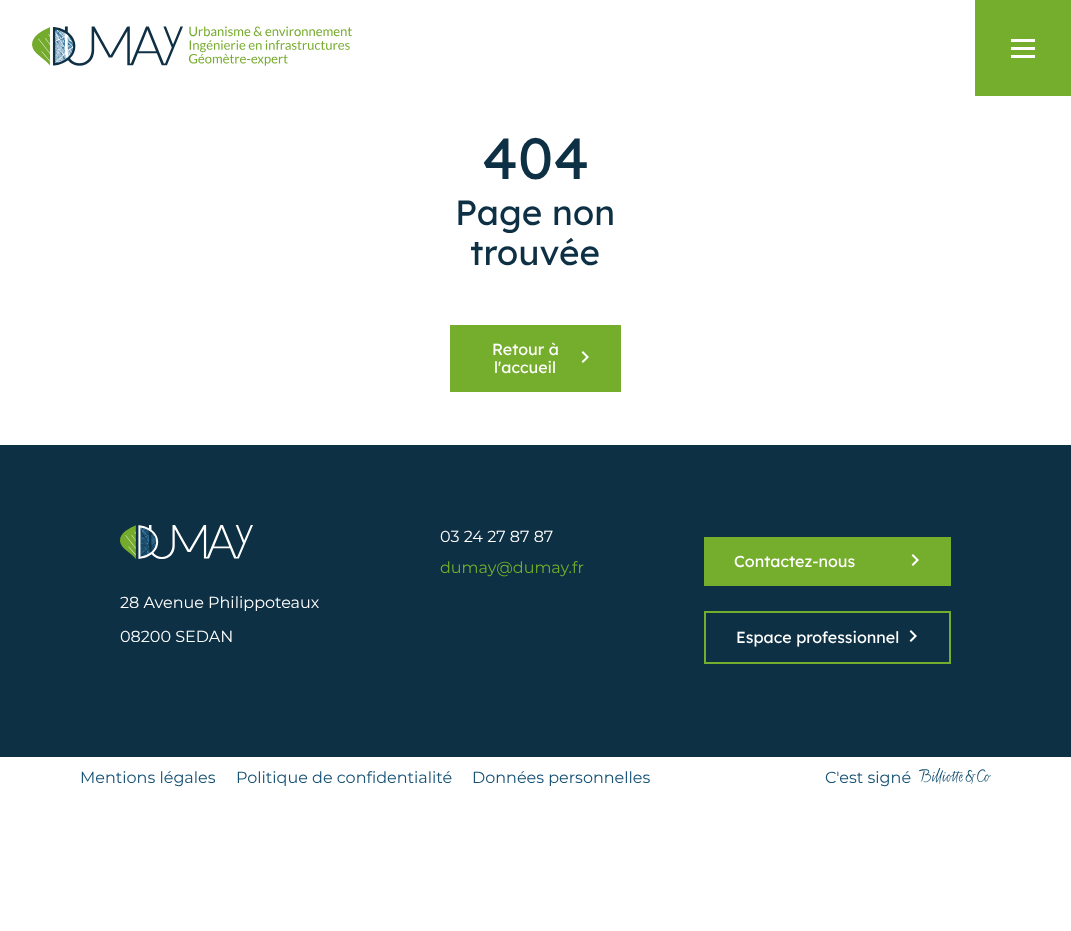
<svg xmlns="http://www.w3.org/2000/svg" width="1071" height="931" viewBox="0 0 1071 931">
  <rect width="100%" height="100%" fill="#fff"/>
  <image x="32" y="26" width="320" height="40" href="img/1.png"/>
  <path d="M975 0h96v96H975z" fill="#75ad2c"/>
  <image x="1011" y="39" width="24" height="19" href="img/2.png"/>
  <path d="M450 325h171v67H450z" fill="#75ad2c"/>
  <image x="581" y="351" width="8" height="12" href="img/3.png"/>
  <path d="M0 445h1071v312H0z" fill="#0e3044"/>
  <image x="120" y="525" width="133" height="34" href="img/4.png"/>
  <path d="M704 537h247v49H704z" fill="#75ad2c"/>
  <image x="911" y="554" width="8" height="12" href="img/3.png"/>
  <path d="M705 612h245v51H705z" fill="none" stroke="#75ad2c" stroke-width="2"/>
  <image x="909" y="630" width="8" height="12" href="img/5.png"/>
  <image x="919" y="768" width="72" height="16" href="img/6.png"/>
  <text x="482" y="179" font-family="Lexend Deca" font-size="58" fill="#0e3044">404</text>
  <g font-family="Lexend Deca" font-size="35" fill="#0e3044">
    <text x="455" y="225">Page non</text>
    <text x="470" y="265">trouvée</text>
  </g>
  <g font-family="Lexend Deca" font-size="16" fill="#fff">
    <text x="492" y="355">Retour à</text>
    <text x="494" y="373">l'accueil</text>
  </g>
  <g font-family="Montserrat" font-size="16" fill="#fff">
    <text x="120" y="608">28 Avenue Philippoteaux</text>
    <text x="120" y="642">08200 SEDAN</text>
    <text x="440" y="542">03 24 27 87 87</text>
  </g>
  <text x="440" y="573" font-family="Montserrat" font-size="16" fill="#75ad2c">dumay@dumay.fr</text>
  <g font-family="Lexend Deca" font-size="16" fill="#fff">
    <text x="734" y="567">Contactez-nous</text>
    <text x="736" y="643">Espace professionnel</text>
  </g>
  <g font-family="Montserrat" font-size="16" fill="#165174">
    <text x="80" y="783">Mentions légales</text>
    <text x="236" y="783">Politique de confidentialité</text>
    <text x="472" y="783">Données personnelles</text>
    <text x="825" y="783">C'est signé</text>
  </g>
</svg>
